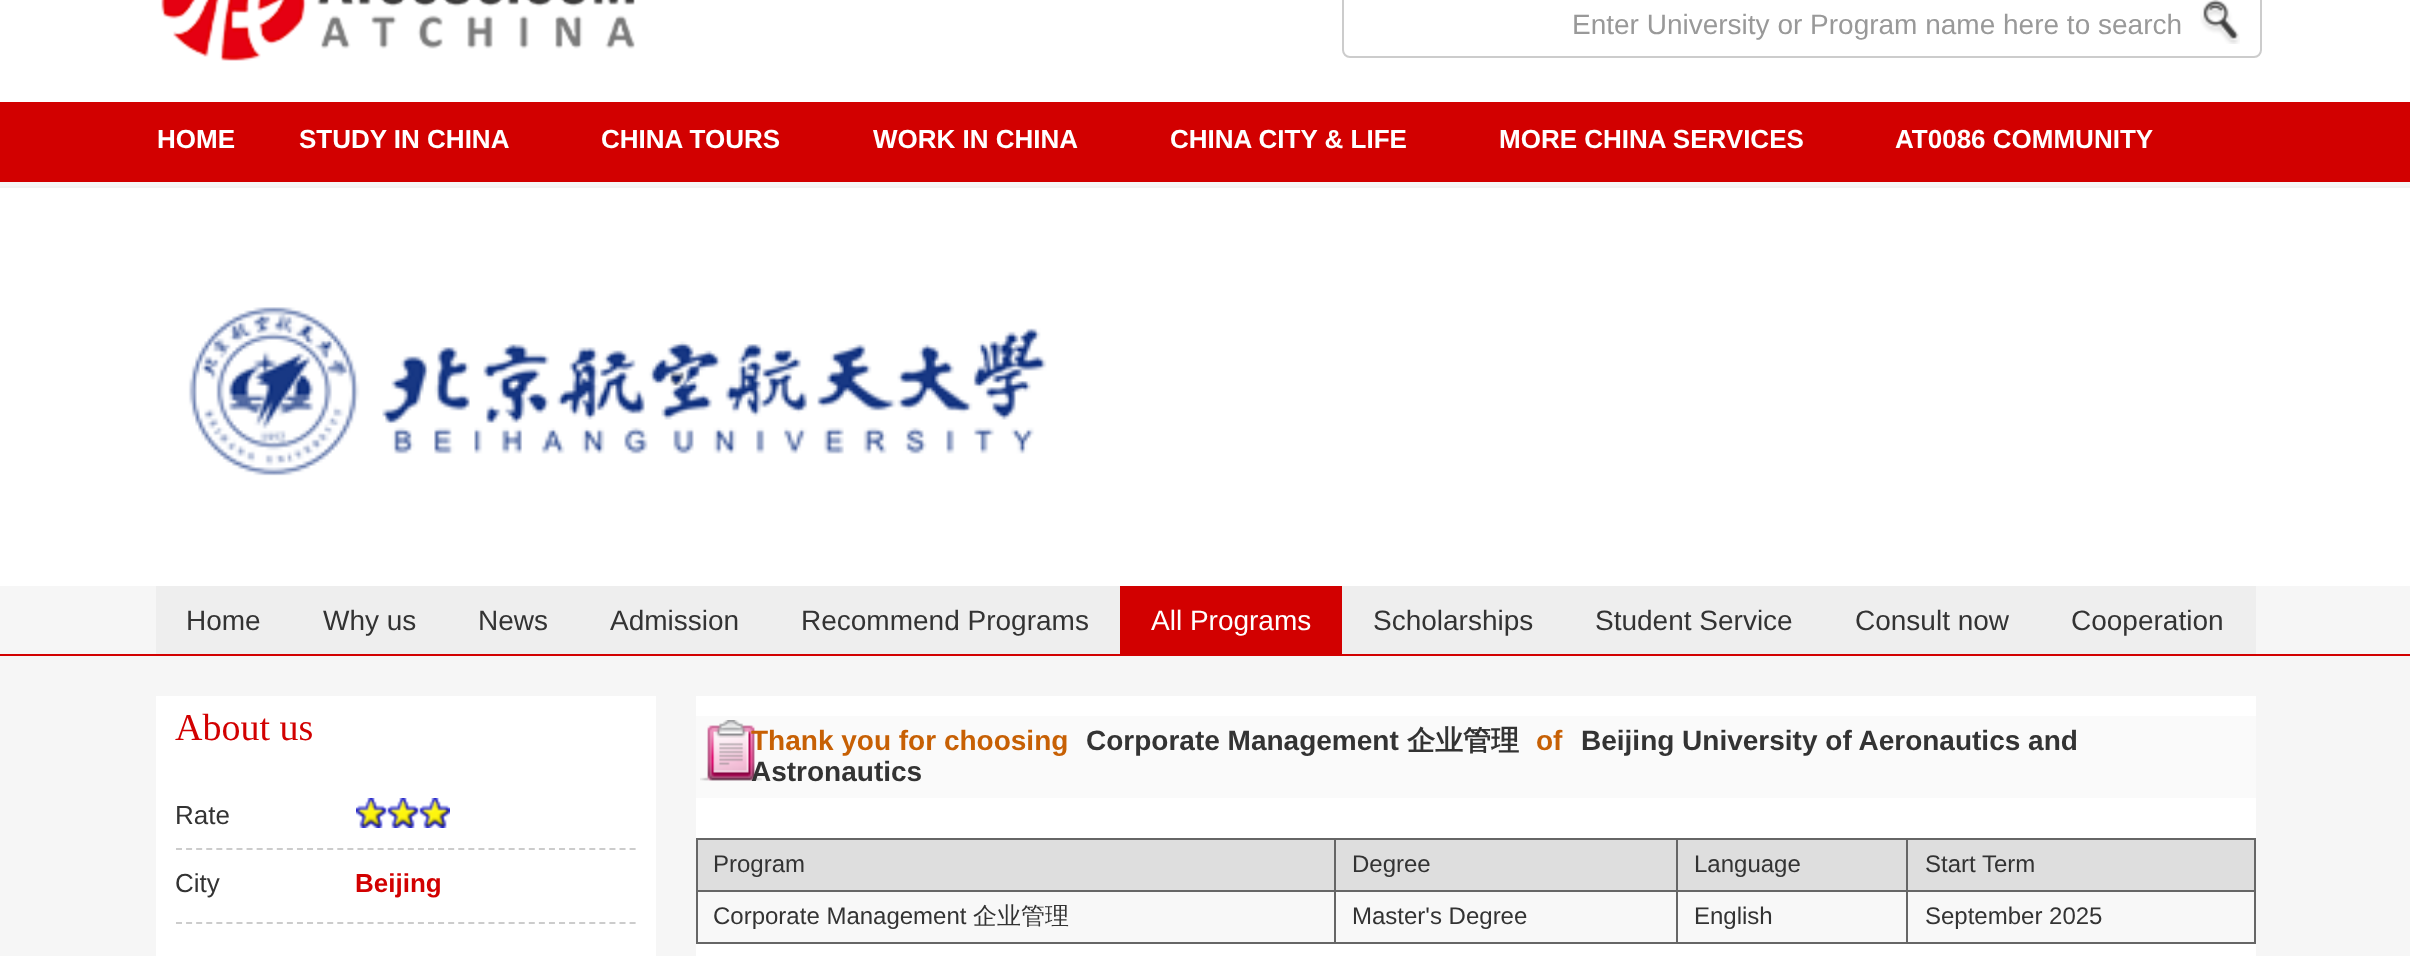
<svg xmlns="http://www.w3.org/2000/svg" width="2410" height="956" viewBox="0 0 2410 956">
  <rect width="100%" height="100%" fill="#f6f6f6"/>
  <path d="M0 0h2410v102H0z" fill="#fff"/>
  <image x="161" y="0" width="474" height="61" href="img/1.png"/>
  <rect x="1343" y="-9" width="918" height="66" rx="7" fill="none" stroke="#ccc" stroke-width="2"/>
  <image x="2200" y="0" width="40" height="44" href="img/2.png"/>
  <path d="M0 102h2410v80H0z" fill="#d20000"/>
  <path d="M0 186h2410v2H0z" fill="#f2f2f2"/>
  <path d="M0 188h2410v398H0z" fill="#fff"/>
  <image x="188" y="307" width="859" height="169" href="img/3.png"/>
  <path d="M0 654h2410v2H0z" fill="#d20000"/>
  <path d="M156 586h2100v68H156z" fill="#eee"/>
  <path d="M1120 586h222v68H1120z" fill="#d20000"/>
  <path d="M156 696h500v260H156z" fill="#fff"/>
  <path d="M176 849H636" fill="none" stroke="#ccc" stroke-width="2" stroke-dasharray="6 4.08"/>
  <image x="356" y="798" width="94" height="30" href="img/4.png"/>
  <path d="M176 923H636" fill="none" stroke="#ccc" stroke-width="2" stroke-dasharray="6 4.08"/>
  <path d="M696 696h1560v260H696z" fill="#fff"/>
  <path d="M696 716h1560v82H696z" fill="#fafafa"/>
  <image x="700" y="720" width="62" height="61" href="img/5.png"/>
  <path d="M698 840h636v50H698z" fill="#dedede"/>
  <path d="M1906 838h350v2H1906z" fill="#666"/>
  <path d="M1906 890h350v2H1906z" fill="#666"/>
  <path d="M2254 890h2v54H2254z" fill="#666"/>
  <path d="M1906 942h350v2H1906z" fill="#666"/>
  <path d="M1906 890h2v54H1906z" fill="#666"/>
  <path d="M1676 890h232v2H1676z" fill="#666"/>
  <path d="M1906 838h2v54H1906z" fill="#666"/>
  <path d="M1676 838h232v2H1676z" fill="#666"/>
  <path d="M1676 942h232v2H1676z" fill="#666"/>
  <path d="M1676 890h2v54H1676z" fill="#666"/>
  <path d="M1334 890h344v2H1334z" fill="#666"/>
  <path d="M1676 838h2v54H1676z" fill="#666"/>
  <path d="M1334 838h344v2H1334z" fill="#666"/>
  <path d="M1334 942h344v2H1334z" fill="#666"/>
  <path d="M1334 890h2v54H1334z" fill="#666"/>
  <path d="M696 890h640v2H696z" fill="#666"/>
  <path d="M1334 838h2v54H1334z" fill="#666"/>
  <path d="M696 838h640v2H696z" fill="#666"/>
  <path d="M696 942h640v2H696z" fill="#666"/>
  <path d="M696 890h2v54H696z" fill="#666"/>
  <path d="M696 838h2v54H696z" fill="#666"/>
  <path d="M1336 840h340v50H1336z" fill="#dedede"/>
  <path d="M1678 840h228v50H1678z" fill="#dedede"/>
  <path d="M1908 840h346v50H1908z" fill="#dedede"/>
  <path d="M2254 838h2v54H2254z" fill="#666"/>
  <path d="M698 892h636v50H698z" fill="#f8f8f8"/>
  <path d="M1336 892h340v50H1336z" fill="#f8f8f8"/>
  <path d="M1678 892h228v50H1678z" fill="#f8f8f8"/>
  <path d="M1908 892h346v50H1908z" fill="#f8f8f8"/>
  <text x="1572" y="34" font-family="Liberation Sans" font-size="28" fill="#999">Enter University or Program name here to search</text>
  <g font-family="Liberation Sans" font-size="26" font-weight="bold" fill="#fff">
    <text x="157" y="148">HOME</text>
    <text x="299" y="148">STUDY IN CHINA</text>
    <text x="601" y="148">CHINA TOURS</text>
    <text x="873" y="148">WORK IN CHINA</text>
    <text x="1170" y="148">CHINA CITY &amp; LIFE</text>
    <text x="1499" y="148">MORE CHINA SERVICES</text>
    <text x="1895" y="148">AT0086 COMMUNITY</text>
  </g>
  <g font-family="Liberation Sans" font-size="28" fill="#333">
    <text x="186" y="630">Home</text>
    <text x="323" y="630">Why us</text>
    <text x="478" y="630">News</text>
    <text x="610" y="630">Admission</text>
    <text x="801" y="630">Recommend Programs</text>
  </g>
  <text x="1151" y="630" font-family="Liberation Sans" font-size="28" fill="#fff">All Programs</text>
  <g font-family="Liberation Sans" font-size="28" fill="#333">
    <text x="1373" y="630">Scholarships</text>
    <text x="1595" y="630">Student Service</text>
    <text x="1855" y="630">Consult now</text>
    <text x="2071" y="630">Cooperation</text>
  </g>
  <text x="175" y="740" font-family="Liberation Serif" font-size="38" fill="#d20000">About us</text>
  <g font-family="Liberation Sans" font-size="26" fill="#333">
    <text x="175" y="824">Rate</text>
    <text x="175" y="892">City</text>
  </g>
  <text x="355" y="892" font-family="Liberation Sans" font-size="26" font-weight="bold" fill="#d20000">Beijing</text>
  <text x="751" y="750" font-family="Liberation Sans" font-size="28" font-weight="bold" fill="#c76004">Thank you for choosing</text>
  <text x="1086" y="750" font-family="Liberation Sans" font-size="28" font-weight="bold" fill="#333">Corporate Management</text>
  <text x="1407" y="750" font-family="WenQuanYi Zen Hei" font-size="28" font-weight="bold" fill="#333">企业管理</text>
  <text x="1536" y="750" font-family="Liberation Sans" font-size="28" font-weight="bold" fill="#c76004">of</text>
  <g font-family="Liberation Sans" font-size="28" font-weight="bold" fill="#333">
    <text x="1581" y="750">Beijing University of Aeronautics and</text>
    <text x="751" y="781">Astronautics</text>
  </g>
  <g font-family="Liberation Sans" font-size="24" fill="#333">
    <text x="713" y="872">Program</text>
    <text x="1352" y="872">Degree</text>
    <text x="1694" y="872">Language</text>
    <text x="1925" y="872">Start Term</text>
    <text x="713" y="924">Corporate Management</text>
  </g>
  <text x="973" y="924" font-family="WenQuanYi Zen Hei" font-size="24" font-weight="500" fill="#333">企业管理</text>
  <g font-family="Liberation Sans" font-size="24" fill="#333">
    <text x="1352" y="924">Master's Degree</text>
    <text x="1694" y="924">English</text>
    <text x="1925" y="924">September 2025</text>
  </g>
</svg>
